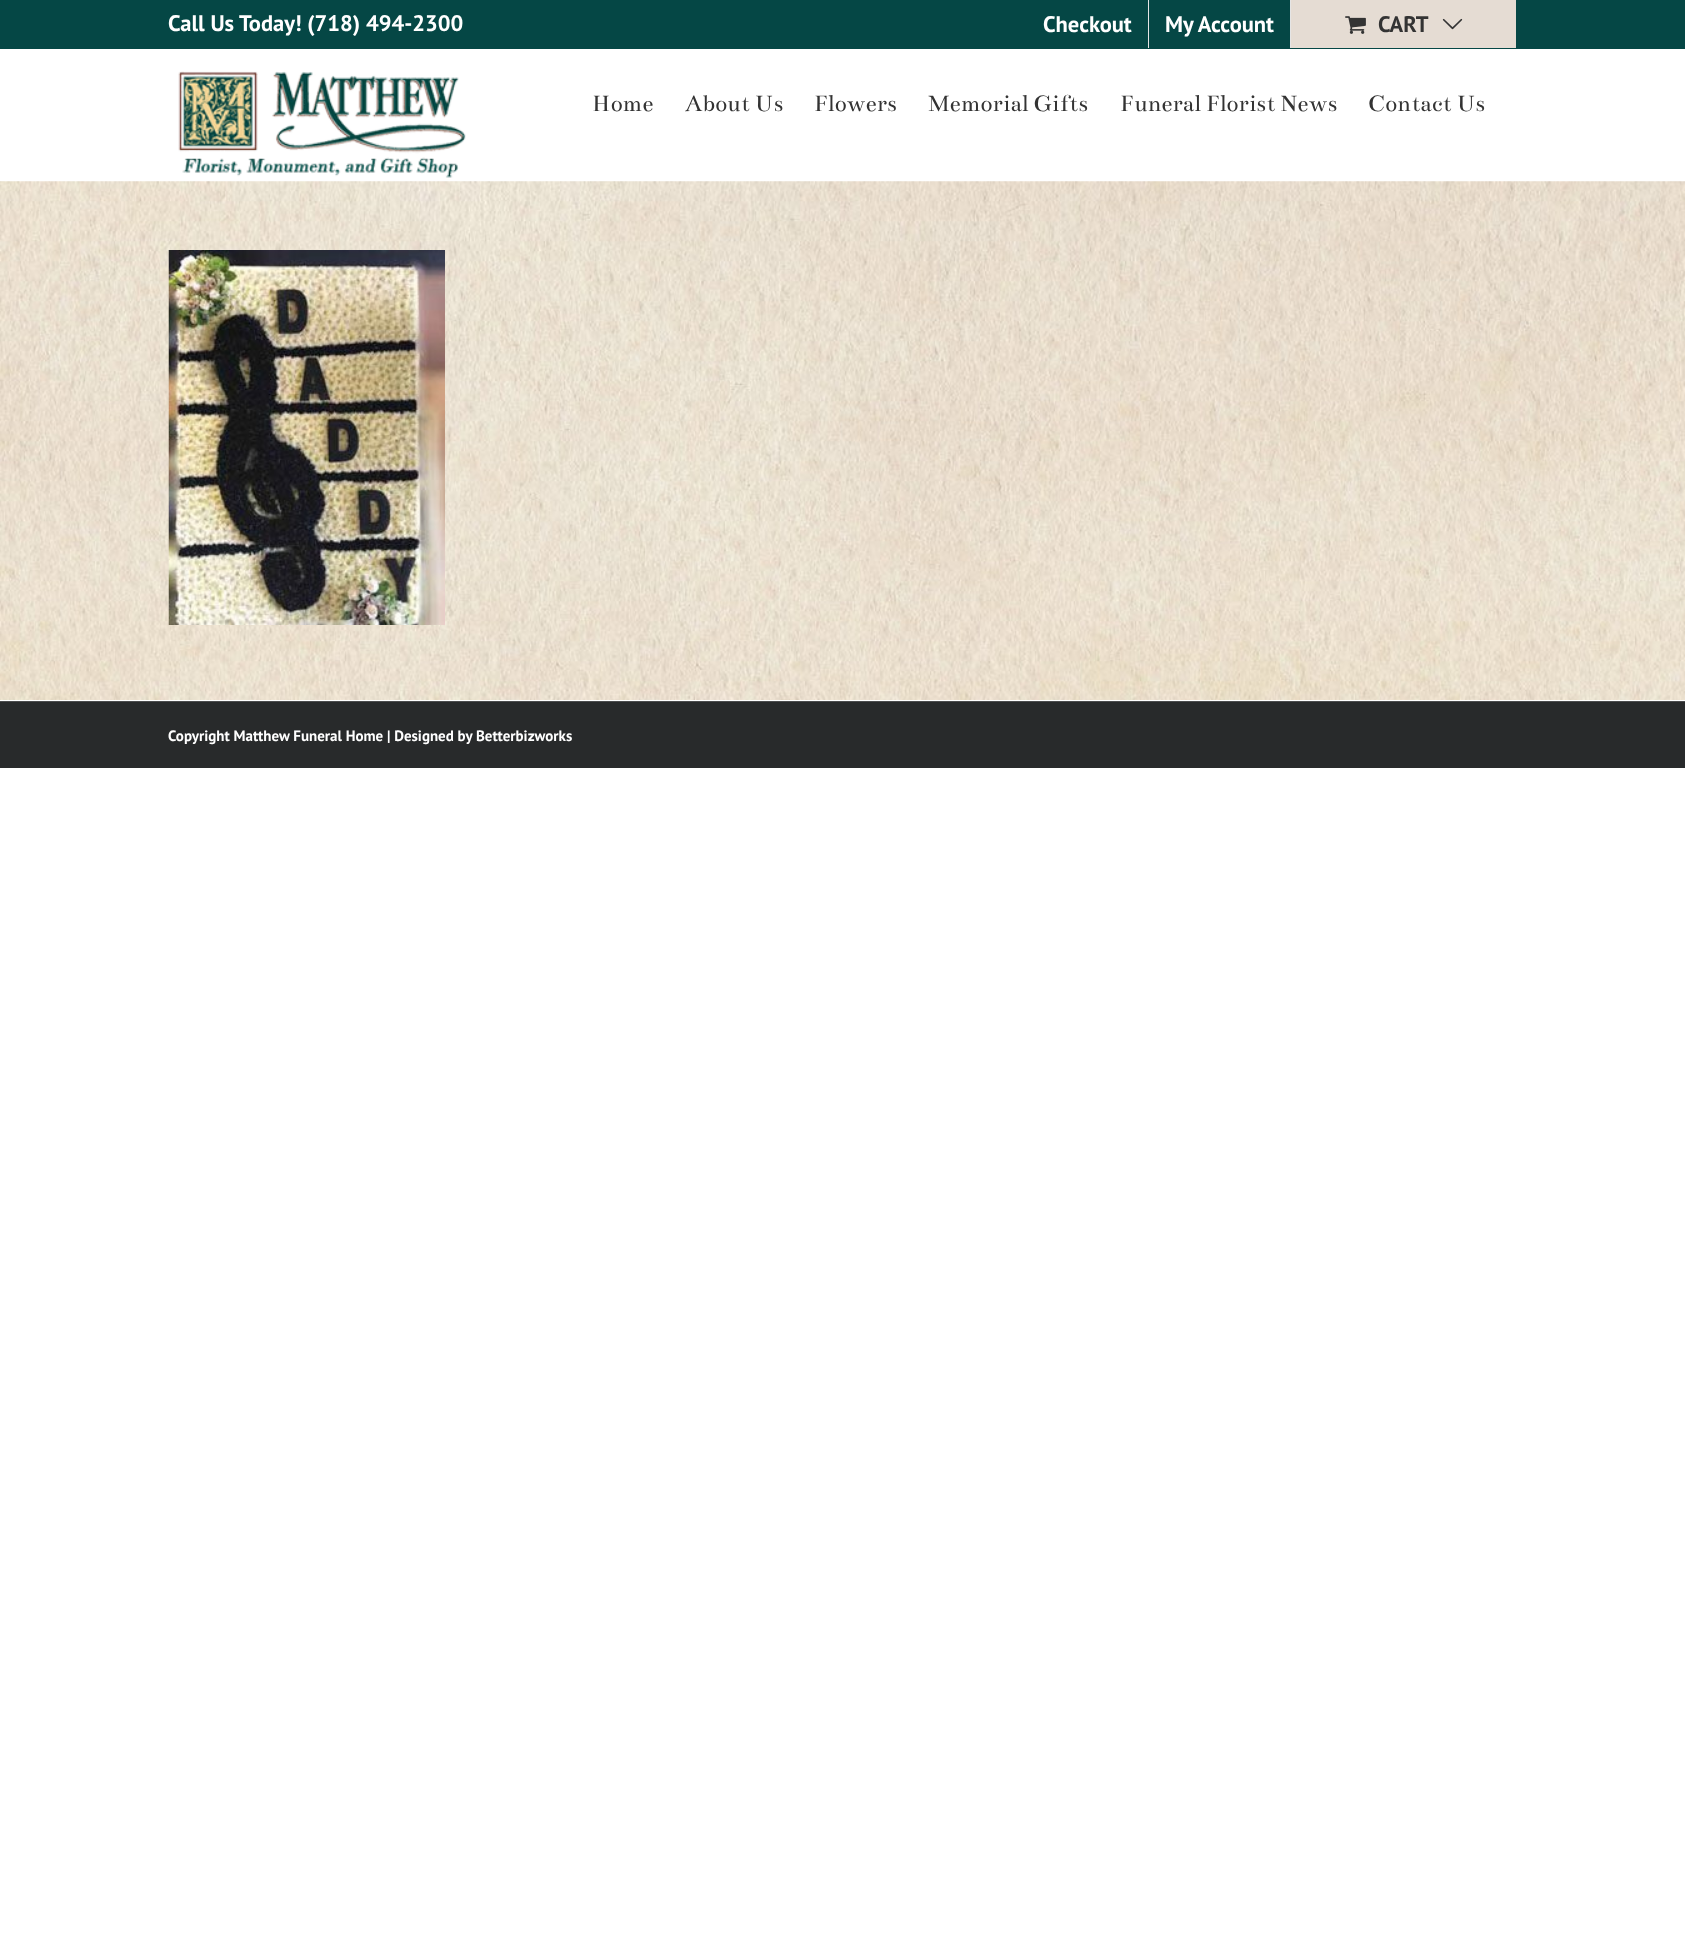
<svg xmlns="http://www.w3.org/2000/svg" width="1685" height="1958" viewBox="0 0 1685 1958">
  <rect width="100%" height="100%" fill="#fff"/>
  <path d="M0 0h1685v49H0z" fill="#054745"/>
  <path d="M1148 0h1v48H1148z" fill="#e5e5e5"/>
  <path d="M1290 0h1v48H1290z" fill="#e5e5e5"/>
  <path d="M1291 0h225v48H1291z" fill="#e5dcd3"/>
  <image x="1345" y="16" width="21" height="18" href="img/1.png"/>
  <image x="1442" y="18" width="21" height="12" href="img/2.png"/>
  <image x="178" y="71" width="288" height="107" href="img/3.png"/>
  <image x="0" y="181" width="1685" height="519" href="img/4.png"/>
  <image x="168" y="250" width="277" height="375" href="img/5.png"/>
  <path d="M0 702h1685v66H0z" fill="#282a2b"/>
  <path d="M0 701h1685v1H0z" fill="#4b4c4d"/>
  <g font-family="PT Sans" font-size="22.5" font-weight="bold" fill="#fff">
    <text x="168" y="31">Call Us Today! (718) 494-2300</text>
    <text x="1043" y="32">Checkout</text>
    <text x="1165" y="32">My Account</text>
  </g>
  <text x="1378" y="32" font-family="PT Sans" font-size="22.5" font-weight="bold" fill="#333">CART</text>
  <g font-family="Bentham" font-size="25" fill="#333">
    <text x="592" y="111">Home</text>
    <text x="685" y="111">About Us</text>
    <text x="814" y="111">Flowers</text>
    <text x="928" y="111">Memorial Gifts</text>
    <text x="1120" y="111">Funeral Florist News</text>
    <text x="1368" y="111">Contact Us</text>
  </g>
  <text x="168" y="741" font-family="PT Sans" font-size="15" font-weight="bold" fill="#fff">Copyright Matthew Funeral Home | Designed by Betterbizworks</text>
</svg>
